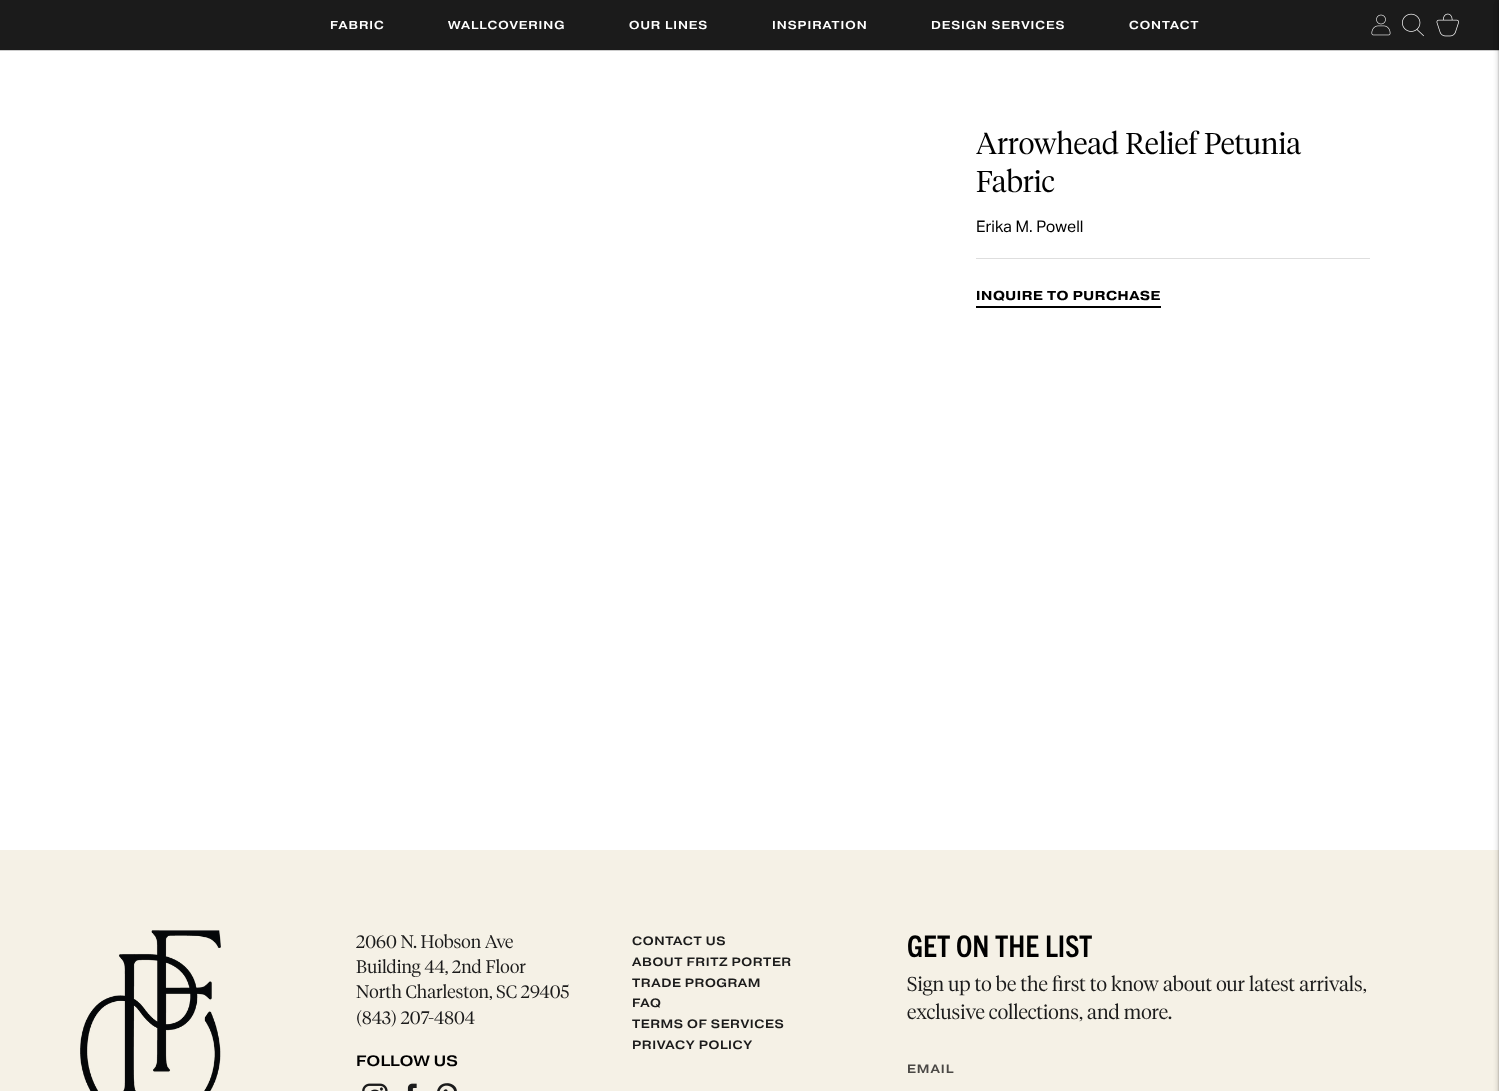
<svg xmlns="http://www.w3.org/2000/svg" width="1499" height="1091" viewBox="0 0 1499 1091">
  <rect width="100%" height="100%" fill="#fff"/>
  <path d="M0 1h1499v50H0z" fill="#00000033" filter="blur(0.5px)"/>
  <path d="M0 0h1499v50H0z" fill="#1b1b1b"/>
  <image x="1371" y="14" width="20" height="22" href="img/1.png"/>
  <image x="1402" y="13" width="22" height="24" href="img/2.png"/>
  <image x="1436" y="13" width="23" height="24" href="img/3.png"/>
  <path d="M0 850h1499v241H0z" fill="#f5f1e6"/>
  <path d="M1499 4h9v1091H1499z" fill="#0000001a" filter="blur(3px)"/>
  <path d="M1499 2h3v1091H1499z" fill="#00000026" filter="blur(1px)"/>
  <path d="M976 258h394v1H976z" fill="#dedede"/>
  <path d="M976 306h185v2H976z" fill="#000"/>
  <path d="M1499 4h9v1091H1499z" fill="#0000001a" filter="blur(3px)"/>
  <path d="M1499 2h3v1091H1499z" fill="#00000026" filter="blur(1px)"/>
  <image x="80" y="930" width="141" height="161" href="img/4.png"/>
  <image x="362" y="1083" width="26" height="8" href="img/5.png"/>
  <image x="407" y="1083" width="10" height="8" href="img/6.png"/>
  <image x="437" y="1083" width="20" height="8" href="img/7.png"/>
  <g font-family="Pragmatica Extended" font-size="11.5" font-weight="500" letter-spacing="1" fill="#fff">
    <text x="330" y="29">FABRIC</text>
    <text x="448" y="29">WALLCOVERING</text>
    <text x="629" y="29">OUR LINES</text>
    <text x="772" y="29">INSPIRATION</text>
    <text x="931" y="29">DESIGN SERVICES</text>
    <text x="1129" y="29">CONTACT</text>
  </g>
  <g font-family="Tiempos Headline" font-size="30" font-weight="300" fill="#000">
    <text x="976" y="154">Arrowhead Relief Petunia</text>
    <text x="976" y="192">Fabric</text>
  </g>
  <text x="976" y="232" font-family="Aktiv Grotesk" font-size="16" fill="#000">Erika M. Powell</text>
  <text x="976" y="300" font-family="Pragmatica Extended" font-size="13" font-weight="bold" letter-spacing="0.6" fill="#000">INQUIRE TO PURCHASE</text>
  <g font-family="Tiempos Headline" font-size="18" font-weight="300" fill="#1b1b1b">
    <text x="356" y="948">2060 N. Hobson Ave</text>
    <text x="356" y="973">Building 44, 2nd Floor</text>
    <text x="356" y="998">North Charleston, SC 29405</text>
    <text x="356" y="1024">(843) 207-4804</text>
  </g>
  <text x="356" y="1066" font-family="Pragmatica Extended" font-size="15" font-weight="500" letter-spacing="0.25" fill="#000">FOLLOW US</text>
  <g font-family="Pragmatica Extended" font-size="12" font-weight="500" letter-spacing="0.6" fill="#1b1b1b">
    <text x="632" y="945">CONTACT US</text>
    <text x="632" y="966">ABOUT FRITZ PORTER</text>
    <text x="632" y="987">TRADE PROGRAM</text>
    <text x="632" y="1007">FAQ</text>
    <text x="632" y="1028">TERMS OF SERVICES</text>
    <text x="632" y="1049">PRIVACY POLICY</text>
  </g>
  <text x="907" y="957" font-family="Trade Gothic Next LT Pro" font-size="30" font-weight="bold" fill="#000">GET ON THE LIST</text>
  <g font-family="Tiempos Headline" font-size="20" font-weight="300" fill="#1b1b1b">
    <text x="907" y="991">Sign up to be the first to know about our latest arrivals,</text>
    <text x="907" y="1019">exclusive collections, and more.</text>
  </g>
  <text x="907" y="1073" font-family="Pragmatica Extended" font-size="12" font-weight="500" letter-spacing="1" fill="#4a4845">EMAIL</text>
</svg>
